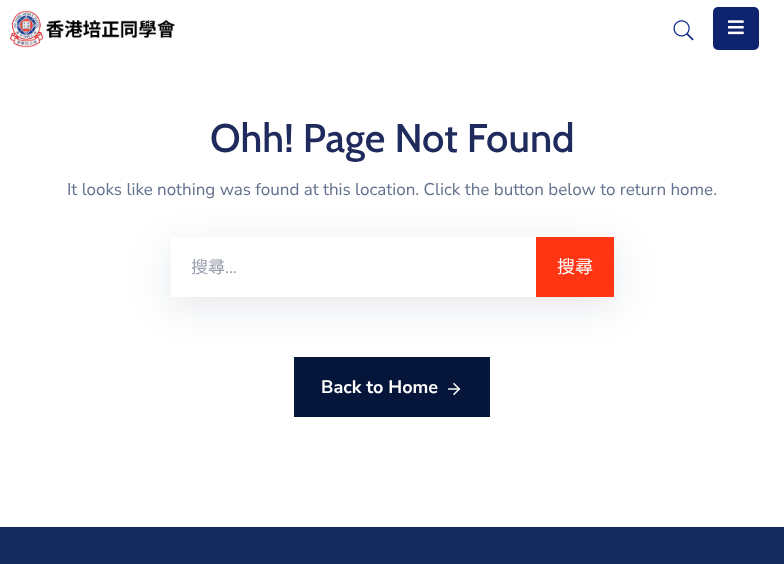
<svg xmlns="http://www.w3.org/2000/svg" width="784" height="564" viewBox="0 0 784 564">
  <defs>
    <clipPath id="clip1"><path d="M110 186H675V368H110ZM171 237H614V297H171Z" clip-rule="evenodd"/></clipPath>
  </defs>
  <rect width="100%" height="100%" fill="#fff"/>
  <image x="10" y="10" width="165" height="38" href="img/1.png"/>
  <image x="673" y="20" width="21" height="21" href="img/2.png"/>
  <rect x="713" y="7" width="46" height="43" rx="5" fill="#0f246f"/>
  <image x="728" y="20" width="16" height="15" href="img/3.png"/>
  <g clip-path="url(#clip1)">
    <path d="M171 247h443v60H171z" fill="#06163a1a" filter="blur(20px)"/>
  </g>
  <path d="M536 237h78v60H536z" fill="#ff3514"/>
  <path d="M294 357h196v60H294z" fill="#06163a"/>
  <image x="448" y="383" width="12" height="12" href="img/4.png"/>
  <path d="M0 527h784v37H0z" fill="#132a5f"/>
  <text x="210" y="152" font-family="Cabin" font-size="40" font-weight="500" fill="#202b5d">Ohh! Page Not Found</text>
  <text x="67" y="195" font-family="Nunito Sans" font-size="17" fill="#62718d">It looks like nothing was found at this location. Click the button below to return home.</text>
  <text x="191" y="273" font-family="Noto Sans CJK HK" font-size="17" fill="#999eac">搜尋</text>
  <text x="225" y="273" font-family="Nunito Sans" font-size="17" fill="#999eac">...</text>
  <text x="557" y="273" font-family="Noto Sans CJK HK" font-size="18" fill="#fff">搜尋</text>
  <text x="321" y="393" font-family="Nunito Sans" font-size="18" font-weight="bold" fill="#fff">Back to Home</text>
</svg>
